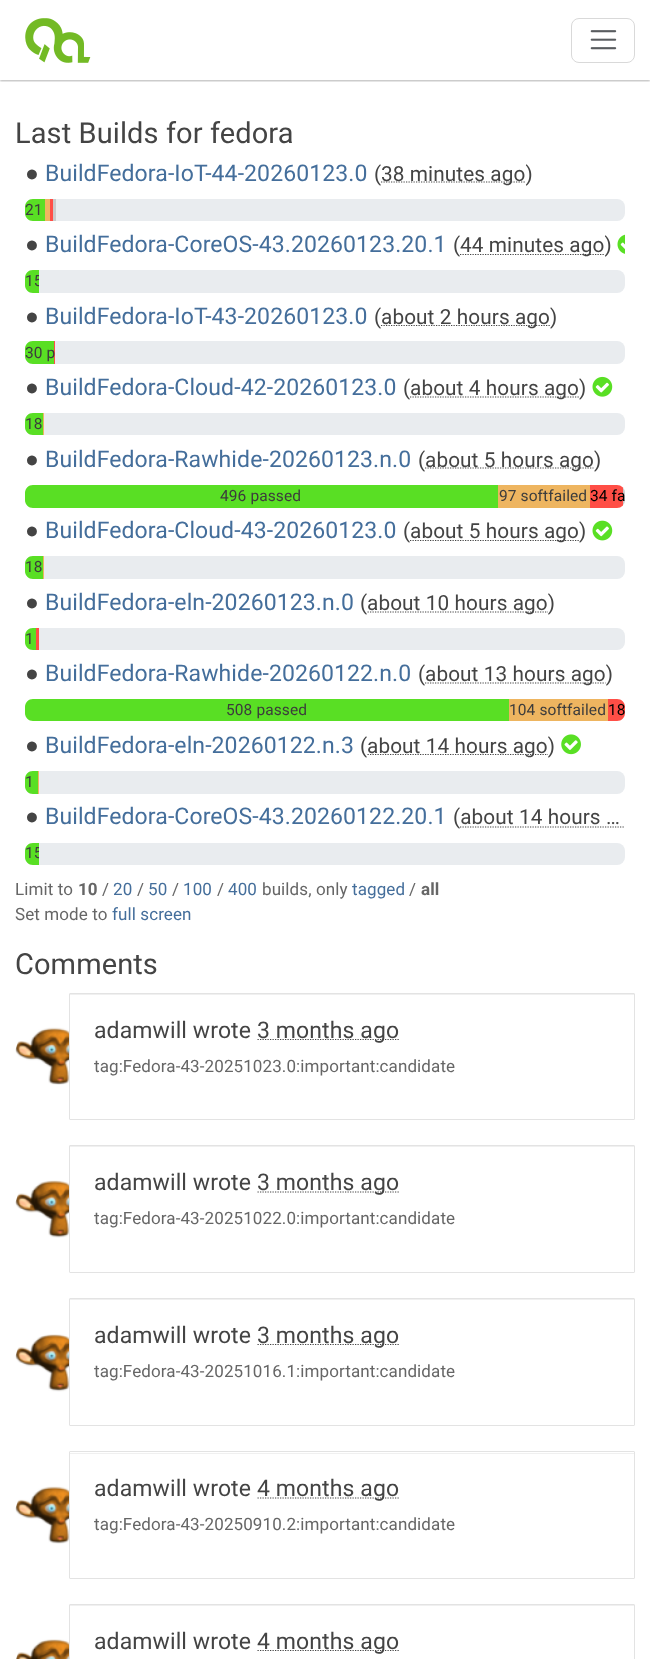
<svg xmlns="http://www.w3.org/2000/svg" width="650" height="1659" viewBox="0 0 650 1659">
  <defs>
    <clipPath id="clip1"><path d="M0 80h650v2H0z"/></clipPath>
    <clipPath id="clip2"><rect x="25" y="485" width="600" height="23" rx="8"/></clipPath>
    <clipPath id="clip3"><path d="M25 805h600v25H25z"/></clipPath>
    <clipPath id="clip4"><path d="M25 270h14v23H25z"/></clipPath>
    <clipPath id="clip5"><path d="M25 843h14v22H25z"/></clipPath>
  </defs>
  <rect width="100%" height="100%" fill="#fff"/>
  <g clip-path="url(#clip1)">
    <path d="M0 1h650v80H0z" fill="#0000004d" filter="blur(1px)"/>
  </g>
  <image x="25" y="18" width="66" height="45" href="img/1.png"/>
  <rect x="571.5" y="18.5" width="63" height="44" rx="7.5" fill="none" stroke="#d9d9d9"/>
  <image x="590" y="30" width="27" height="20" href="img/2.png"/>
  <path d="M381 182H525.5" fill="none" stroke="#444" stroke-width="1.2" stroke-dasharray="1.25 1.25"/>
  <rect x="25" y="199" width="600" height="22" rx="8" fill="#e9ecef"/>
  <path d="M33 199H45V221H33C28.5 221 25 217.5 25 213V207C25 202.5 28.5 199 33 199Z" fill="#59df24"/>
  <path d="M45 199h5v22H45z" fill="#eeb560"/>
  <path d="M50 199h3v22H50z" fill="#ff4e46"/>
  <path d="M53 199h3v22H53z" fill="#cacaca"/>
  <path d="M460 254.5H604.5" fill="none" stroke="#444" stroke-width="1.2" stroke-dasharray="1.25 1.25"/>
  <image x="617" y="234" width="8" height="20" href="img/3.png"/>
  <rect x="25" y="270" width="600" height="23" rx="8" fill="#e9ecef"/>
  <path d="M33 270H39V293H33C28.5 293 25 289.5 25 285V278C25 273.5 28.5 270 33 270Z" fill="#59df24"/>
  <path d="M381 325.5H550" fill="none" stroke="#444" stroke-width="1.2" stroke-dasharray="1.25 1.25"/>
  <rect x="25" y="341" width="600" height="23" rx="8" fill="#e9ecef"/>
  <path d="M33 341H54V364H33C28.5 364 25 360.5 25 356V349C25 344.5 28.5 341 33 341Z" fill="#59df24"/>
  <path d="M54 341h1v23H54z" fill="#ff4e46"/>
  <path d="M410 397H579" fill="none" stroke="#444" stroke-width="1.2" stroke-dasharray="1.25 1.25"/>
  <image x="592" y="376" width="21" height="21" href="img/4.png"/>
  <rect x="25" y="413" width="600" height="22" rx="8" fill="#e9ecef"/>
  <path d="M33 413H43V435H33C28.5 435 25 431.5 25 427V421C25 416.5 28.5 413 33 413Z" fill="#59df24"/>
  <path d="M43 413h1v22H43z" fill="#eeb560"/>
  <path d="M425 468H593.5" fill="none" stroke="#444" stroke-width="1.2" stroke-dasharray="1.25 1.25"/>
  <path d="M33 485H498V508H33C28.5 508 25 504.5 25 500V493C25 488.5 28.5 485 33 485Z" fill="#59df24"/>
  <path d="M498 485h92v23H498z" fill="#eeb560"/>
  <g clip-path="url(#clip2)">
    <path d="M590 485h33v23H590z" fill="#ff4e46"/>
    <path d="M623 485h2v23H623z" fill="#cacaca"/>
  </g>
  <path d="M410 540.5H579" fill="none" stroke="#444" stroke-width="1.2" stroke-dasharray="1.25 1.25"/>
  <image x="592" y="520" width="21" height="21" href="img/5.png"/>
  <rect x="25" y="556" width="600" height="23" rx="8" fill="#e9ecef"/>
  <path d="M33 556H43V579H33C28.5 579 25 575.5 25 571V564C25 559.5 28.5 556 33 556Z" fill="#59df24"/>
  <path d="M43 556h1v23H43z" fill="#eeb560"/>
  <path d="M367.5 612H548" fill="none" stroke="#444" stroke-width="1.2" stroke-dasharray="1.25 1.25"/>
  <rect x="25" y="628" width="600" height="22" rx="8" fill="#e9ecef"/>
  <path d="M33 628H36V650H33C28.5 650 25 646.5 25 642V636C25 631.5 28.5 628 33 628Z" fill="#59df24"/>
  <path d="M36 628h3v22H36z" fill="#ff4e46"/>
  <path d="M425 683H605.5" fill="none" stroke="#444" stroke-width="1.2" stroke-dasharray="1.25 1.25"/>
  <path d="M33 699H509V721H33C28.5 721 25 717.5 25 713V707C25 702.5 28.5 699 33 699Z" fill="#59df24"/>
  <path d="M509 699h99v22H509z" fill="#eeb560"/>
  <path d="M608 699H617C621.5 699 625 702.5 625 707V713C625 717.5 621.5 721 617 721H608Z" fill="#ff4e46"/>
  <path d="M367.5 754.5H548" fill="none" stroke="#444" stroke-width="1.2" stroke-dasharray="1.25 1.25"/>
  <image x="561" y="734" width="20" height="21" href="img/6.png"/>
  <rect x="25" y="771" width="600" height="23" rx="8" fill="#e9ecef"/>
  <path d="M33 771H38V794H33C28.5 794 25 790.5 25 786V779C25 774.5 28.5 771 33 771Z" fill="#59df24"/>
  <path d="M38 771h1v23H38z" fill="#eeb560"/>
  <g clip-path="url(#clip3)">
    <path d="M460 827H641" fill="none" stroke="#444" stroke-width="1.2" stroke-dasharray="1.25 1.25"/>
  </g>
  <rect x="25" y="843" width="600" height="22" rx="8" fill="#e9ecef"/>
  <path d="M33 843H39V865H33C28.5 865 25 861.5 25 857V851C25 846.5 28.5 843 33 843Z" fill="#59df24"/>
  <image x="15" y="1027" width="54" height="58" href="img/7.png"/>
  <path d="M70 994h564v1H70z" fill="#f0f0f0"/>
  <rect x="69.5" y="993.5" width="565" height="126" rx="0.5" fill="none" stroke="#e3e3e3"/>
  <path d="M257.5 1039.5H399.5" fill="none" stroke="#444" stroke-width="1.2" stroke-dasharray="1.25 1.25"/>
  <image x="15" y="1180" width="54" height="58" href="img/8.png"/>
  <path d="M70 1146h564v1H70z" fill="#f0f0f0"/>
  <rect x="69.5" y="1145.5" width="565" height="127" rx="0.5" fill="none" stroke="#e3e3e3"/>
  <path d="M257.5 1192H399.5" fill="none" stroke="#444" stroke-width="1.2" stroke-dasharray="1.25 1.25"/>
  <image x="15" y="1334" width="54" height="58" href="img/9.png"/>
  <path d="M70 1299h564v1H70z" fill="#f0f0f0"/>
  <rect x="69.5" y="1298.5" width="565" height="127" rx="0.5" fill="none" stroke="#e3e3e3"/>
  <path d="M257.5 1344.5H399.5" fill="none" stroke="#444" stroke-width="1.2" stroke-dasharray="1.25 1.25"/>
  <image x="15" y="1486" width="54" height="58" href="img/10.png"/>
  <path d="M70 1453h564v1H70z" fill="#f0f0f0"/>
  <rect x="69.5" y="1451.5" width="565" height="127" rx="0.5" fill="none" stroke="#e3e3e3"/>
  <path d="M257.5 1498H399.5" fill="none" stroke="#444" stroke-width="1.2" stroke-dasharray="1.25 1.25"/>
  <image x="16" y="1639" width="53" height="20" href="img/11.png"/>
  <path d="M70 1605h564v1H70z" fill="#f0f0f0"/>
  <rect x="69.5" y="1604.5" width="565" height="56" rx="0.5" fill="none" stroke="#e3e3e3"/>
  <path d="M257.5 1650.5H399.5" fill="none" stroke="#444" stroke-width="1.2" stroke-dasharray="1.25 1.25"/>
  <text x="15" y="143" font-family="Roboto" font-size="29" letter-spacing="0.1" fill="#444">Last Builds for fedora</text>
  <text x="25" y="181" font-family="Liberation Sans" font-size="23" letter-spacing="0.1" fill="#444">●</text>
  <text x="45" y="181" font-family="Roboto" font-size="23" letter-spacing="0.1" fill="#446e9b">BuildFedora-IoT-44-20260123.0</text>
  <g font-family="Roboto" font-size="20.75" letter-spacing="0.1" fill="#444">
    <text x="374" y="181">(</text>
    <text x="381" y="181">38 minutes ago)</text>
  </g>
  <text x="25" y="215" font-family="Roboto" font-size="15.5" letter-spacing="0.1" fill="#3c3c3c">21</text>
  <text x="25" y="252" font-family="Liberation Sans" font-size="23" letter-spacing="0.1" fill="#444">●</text>
  <text x="45" y="252" font-family="Roboto" font-size="23" letter-spacing="0.1" fill="#446e9b">BuildFedora-CoreOS-43.20260123.20.1</text>
  <g font-family="Roboto" font-size="20.75" letter-spacing="0.1" fill="#444">
    <text x="453" y="252">(</text>
    <text x="460" y="252">44 minutes ago)</text>
  </g>
  <g clip-path="url(#clip4)">
    <text x="25" y="286" font-family="Roboto" font-size="15.5" letter-spacing="0.1" fill="#3c3c3c">15</text>
  </g>
  <text x="25" y="324" font-family="Liberation Sans" font-size="23" letter-spacing="0.1" fill="#444">●</text>
  <text x="45" y="324" font-family="Roboto" font-size="23" letter-spacing="0.1" fill="#446e9b">BuildFedora-IoT-43-20260123.0</text>
  <g font-family="Roboto" font-size="20.75" letter-spacing="0.1" fill="#444">
    <text x="374" y="324">(</text>
    <text x="381" y="324">about 2 hours ago)</text>
  </g>
  <text x="25" y="358" font-family="Roboto" font-size="15.5" letter-spacing="0.1" fill="#3c3c3c">30 p</text>
  <text x="25" y="395" font-family="Liberation Sans" font-size="23" letter-spacing="0.1" fill="#444">●</text>
  <text x="45" y="395" font-family="Roboto" font-size="23" letter-spacing="0.1" fill="#446e9b">BuildFedora-Cloud-42-20260123.0</text>
  <g font-family="Roboto" font-size="20.75" letter-spacing="0.1" fill="#444">
    <text x="403" y="395">(</text>
    <text x="410" y="395">about 4 hours ago)</text>
  </g>
  <text x="25" y="429" font-family="Roboto" font-size="15.5" letter-spacing="0.1" fill="#3c3c3c">18</text>
  <text x="25" y="467" font-family="Liberation Sans" font-size="23" letter-spacing="0.1" fill="#444">●</text>
  <text x="45" y="467" font-family="Roboto" font-size="23" letter-spacing="0.1" fill="#446e9b">BuildFedora-Rawhide-20260123.n.0</text>
  <g font-family="Roboto" font-size="20.75" letter-spacing="0.1" fill="#444">
    <text x="418" y="467">(</text>
    <text x="425" y="467">about 5 hours ago)</text>
  </g>
  <g font-family="Roboto" font-size="15.5" letter-spacing="0.1" fill="#3c3c3c">
    <text x="220" y="501">496 passed</text>
    <text x="499" y="501">97 softfailed</text>
  </g>
  <text x="590" y="501" font-family="Roboto" font-size="15.5" letter-spacing="0.1" fill="#000">34 fa</text>
  <text x="25" y="538" font-family="Liberation Sans" font-size="23" letter-spacing="0.1" fill="#444">●</text>
  <text x="45" y="538" font-family="Roboto" font-size="23" letter-spacing="0.1" fill="#446e9b">BuildFedora-Cloud-43-20260123.0</text>
  <g font-family="Roboto" font-size="20.75" letter-spacing="0.1" fill="#444">
    <text x="403" y="538">(</text>
    <text x="410" y="538">about 5 hours ago)</text>
  </g>
  <text x="25" y="572" font-family="Roboto" font-size="15.5" letter-spacing="0.1" fill="#3c3c3c">18</text>
  <text x="25" y="610" font-family="Liberation Sans" font-size="23" letter-spacing="0.1" fill="#444">●</text>
  <text x="45" y="610" font-family="Roboto" font-size="23" letter-spacing="0.1" fill="#446e9b">BuildFedora-eln-20260123.n.0</text>
  <g font-family="Roboto" font-size="20.75" letter-spacing="0.1" fill="#444">
    <text x="360" y="610">(</text>
    <text x="367" y="610">about 10 hours ago)</text>
  </g>
  <text x="25" y="644" font-family="Roboto" font-size="15.5" letter-spacing="0.1" fill="#3c3c3c">1</text>
  <text x="25" y="681" font-family="Liberation Sans" font-size="23" letter-spacing="0.1" fill="#444">●</text>
  <text x="45" y="681" font-family="Roboto" font-size="23" letter-spacing="0.1" fill="#446e9b">BuildFedora-Rawhide-20260122.n.0</text>
  <g font-family="Roboto" font-size="20.75" letter-spacing="0.1" fill="#444">
    <text x="418" y="681">(</text>
    <text x="425" y="681">about 13 hours ago)</text>
  </g>
  <g font-family="Roboto" font-size="15.5" letter-spacing="0.1" fill="#3c3c3c">
    <text x="226" y="715">508 passed</text>
    <text x="509" y="715">104 softfailed</text>
  </g>
  <text x="608" y="715" font-family="Roboto" font-size="15.5" letter-spacing="0.1" fill="#000">18</text>
  <text x="25" y="753" font-family="Liberation Sans" font-size="23" letter-spacing="0.1" fill="#444">●</text>
  <text x="45" y="753" font-family="Roboto" font-size="23" letter-spacing="0.1" fill="#446e9b">BuildFedora-eln-20260122.n.3</text>
  <g font-family="Roboto" font-size="20.75" letter-spacing="0.1" fill="#444">
    <text x="360" y="753">(</text>
    <text x="367" y="753">about 14 hours ago)</text>
  </g>
  <text x="25" y="787" font-family="Roboto" font-size="15.5" letter-spacing="0.1" fill="#3c3c3c">1</text>
  <text x="25" y="824" font-family="Liberation Sans" font-size="23" letter-spacing="0.1" fill="#444">●</text>
  <text x="45" y="824" font-family="Roboto" font-size="23" letter-spacing="0.1" fill="#446e9b">BuildFedora-CoreOS-43.20260122.20.1</text>
  <text x="453" y="824" font-family="Roboto" font-size="20.75" letter-spacing="0.1" fill="#444">(about 14 hours …</text>
  <g clip-path="url(#clip5)">
    <text x="25" y="858" font-family="Roboto" font-size="15.5" letter-spacing="0.1" fill="#3c3c3c">15</text>
  </g>
  <text x="15" y="895" font-family="Roboto" font-size="17" letter-spacing="0.1" fill="#666">Limit to</text>
  <text x="78" y="895" font-family="Roboto" font-size="17" font-weight="bold" letter-spacing="0.1" fill="#666">10</text>
  <text x="102" y="895" font-family="Roboto" font-size="17" letter-spacing="0.1" fill="#666">/</text>
  <text x="113" y="895" font-family="Roboto" font-size="17" letter-spacing="0.1" fill="#446e9b">20</text>
  <text x="137" y="895" font-family="Roboto" font-size="17" letter-spacing="0.1" fill="#666">/</text>
  <text x="148" y="895" font-family="Roboto" font-size="17" letter-spacing="0.1" fill="#446e9b">50</text>
  <text x="172" y="895" font-family="Roboto" font-size="17" letter-spacing="0.1" fill="#666">/</text>
  <text x="183" y="895" font-family="Roboto" font-size="17" letter-spacing="0.1" fill="#446e9b">100</text>
  <text x="217" y="895" font-family="Roboto" font-size="17" letter-spacing="0.1" fill="#666">/</text>
  <text x="228" y="895" font-family="Roboto" font-size="17" letter-spacing="0.1" fill="#446e9b">400</text>
  <text x="262" y="895" font-family="Roboto" font-size="17" letter-spacing="0.1" fill="#666">builds, only</text>
  <text x="352" y="895" font-family="Roboto" font-size="17" letter-spacing="0.1" fill="#446e9b">tagged</text>
  <text x="409" y="895" font-family="Roboto" font-size="17" letter-spacing="0.1" fill="#666">/</text>
  <text x="421" y="895" font-family="Roboto" font-size="17" font-weight="bold" letter-spacing="0.1" fill="#666">all</text>
  <text x="15" y="920" font-family="Roboto" font-size="17" letter-spacing="0.1" fill="#666">Set mode to</text>
  <text x="112" y="920" font-family="Roboto" font-size="17" letter-spacing="0.1" fill="#446e9b">full screen</text>
  <text x="15" y="974" font-family="Roboto" font-size="29" letter-spacing="0.1" fill="#444">Comments</text>
  <g font-family="Roboto" font-size="23" letter-spacing="0.1" fill="#444">
    <text x="94" y="1038">adamwill wrote</text>
    <text x="257" y="1038">3 months ago</text>
  </g>
  <text x="94" y="1072" font-family="Roboto" font-size="17" letter-spacing="0.1" fill="#666">tag:Fedora-43-20251023.0:important:candidate</text>
  <g font-family="Roboto" font-size="23" letter-spacing="0.1" fill="#444">
    <text x="94" y="1190">adamwill wrote</text>
    <text x="257" y="1190">3 months ago</text>
  </g>
  <text x="94" y="1224" font-family="Roboto" font-size="17" letter-spacing="0.1" fill="#666">tag:Fedora-43-20251022.0:important:candidate</text>
  <g font-family="Roboto" font-size="23" letter-spacing="0.1" fill="#444">
    <text x="94" y="1343">adamwill wrote</text>
    <text x="257" y="1343">3 months ago</text>
  </g>
  <text x="94" y="1377" font-family="Roboto" font-size="17" letter-spacing="0.1" fill="#666">tag:Fedora-43-20251016.1:important:candidate</text>
  <g font-family="Roboto" font-size="23" letter-spacing="0.1" fill="#444">
    <text x="94" y="1496">adamwill wrote</text>
    <text x="257" y="1496">4 months ago</text>
  </g>
  <text x="94" y="1530" font-family="Roboto" font-size="17" letter-spacing="0.1" fill="#666">tag:Fedora-43-20250910.2:important:candidate</text>
  <g font-family="Roboto" font-size="23" letter-spacing="0.1" fill="#444">
    <text x="94" y="1649">adamwill wrote</text>
    <text x="257" y="1649">4 months ago</text>
  </g>
</svg>
